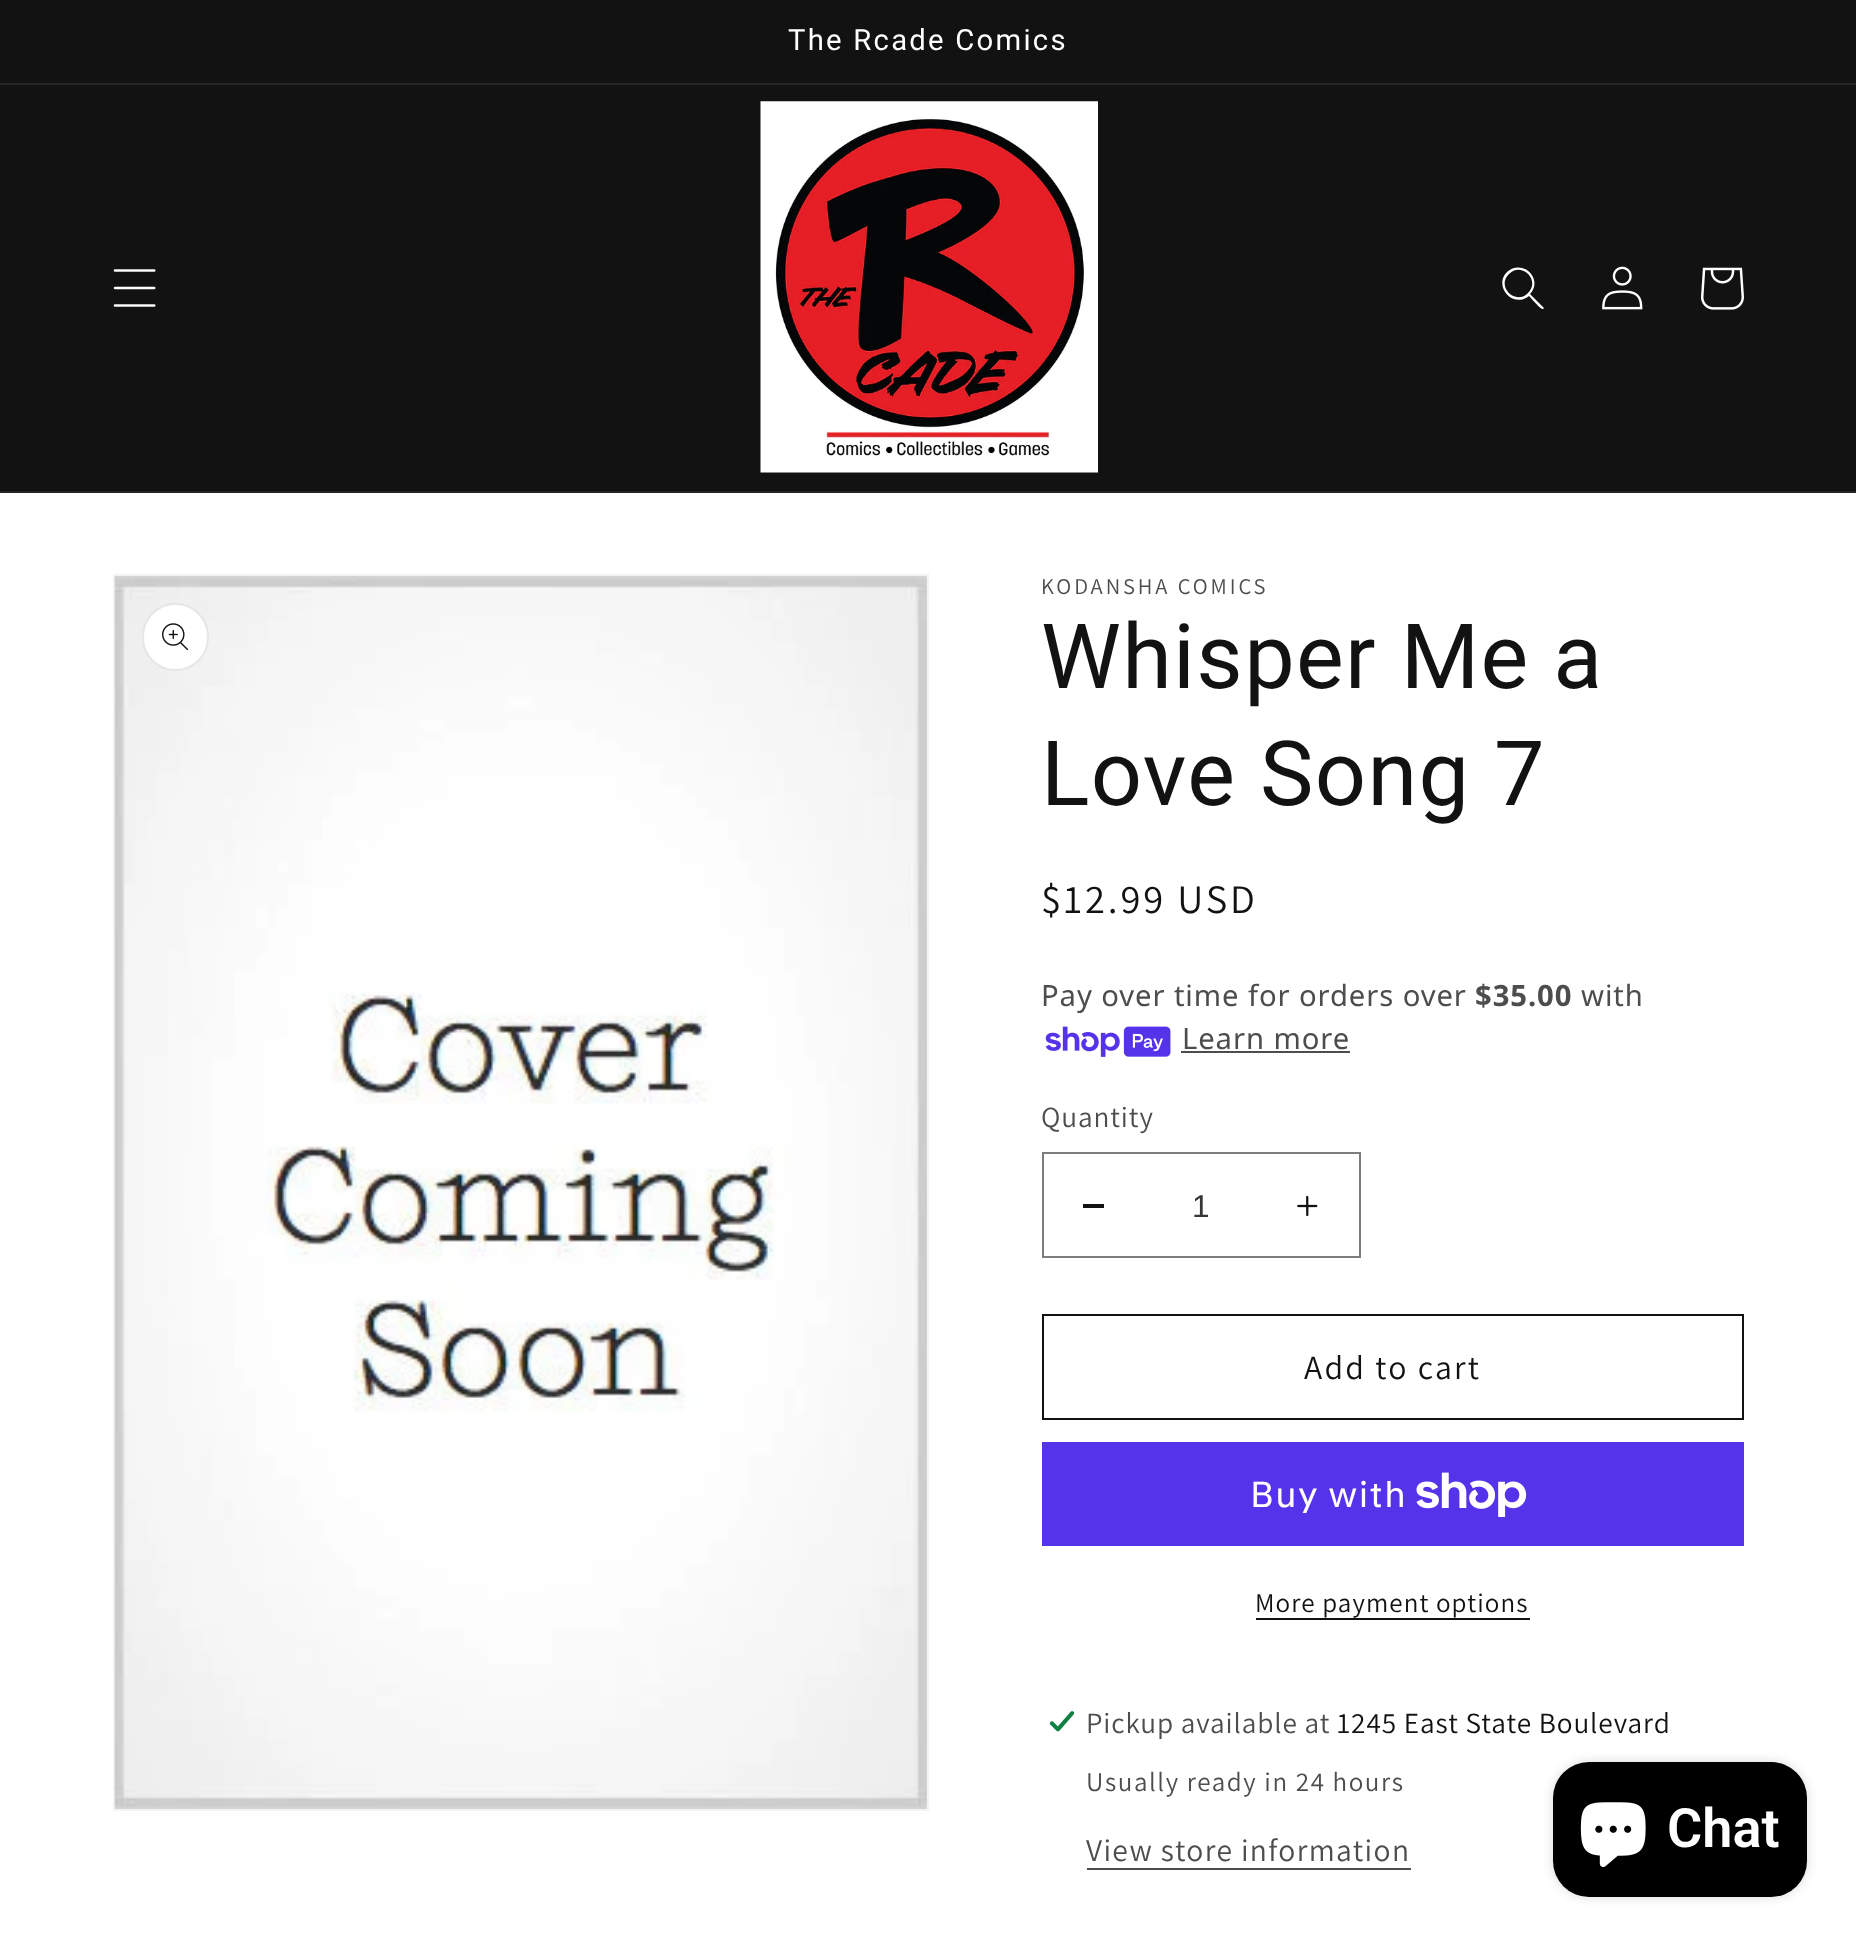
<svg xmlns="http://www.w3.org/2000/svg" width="1856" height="1944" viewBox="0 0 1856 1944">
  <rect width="100%" height="100%" fill="#fff"/>
  <path d="M0 0h1856v491H0z" fill="#121212"/>
  <path d="M0 491h1856v2H0z" fill="#252525"/>
  <image x="113" y="269" width="43" height="38" href="img/1.png"/>
  <image x="760" y="101" width="338" height="372" href="img/2.png"/>
  <path d="M1528 293C1515 306 1496 286 1509 274C1521 261 1541 280 1528 293ZM1529 296C1513 309 1493 286 1507 272C1522 258 1544 279 1530 294L1544 308L1543 309C1541 310 1531 298 1529 296Z" fill="#fff" fill-rule="evenodd"/>
  <image x="1602" y="266" width="41" height="44" href="img/3.png"/>
  <image x="1701" y="267" width="43" height="43" href="img/4.png"/>
  <path d="M0 83h1856v2H0z" fill="#252525"/>
  <path d="M114 575h814v1235H114z" fill="none" stroke="#f3f3f3" stroke-width="2"/>
  <image x="114" y="576" width="813" height="1233" href="img/5.png"/>
  <rect x="142" y="603" width="67" height="68" rx="33.5" fill="#fff"/>
  <rect x="143" y="604" width="65" height="66" rx="32.5" fill="none" stroke="#1212121a" stroke-width="2"/>
  <image x="162" y="623" width="27" height="28" href="img/6.png"/>
  <image x="1045" y="1026" width="126" height="31" href="img/7.png"/>
  <path d="M1181 1051h169v2H1181z" fill="#4d4d4d"/>
  <path d="M1083 1204h21v4H1083z" fill="#121212"/>
  <image x="1297" y="1195" width="21" height="22" href="img/8.png"/>
  <path d="M1043 1153h317v104H1043z" fill="none" stroke="#7d7d7d" stroke-width="2"/>
  <path d="M1043 1315h700v104H1043z" fill="none" stroke="#121212" stroke-width="2"/>
  <path d="M1042 1442h702v104H1042z" fill="#5433eb"/>
  <image x="1416" y="1472" width="111" height="45" href="img/9.png"/>
  <path d="M1256 1618h274v2H1256z" fill="#121212"/>
  <image x="1049" y="1711" width="26" height="21" href="img/10.png"/>
  <path d="M1087 1868h324v2H1087z" fill="#4d4d4d"/>
  <rect x="1553" y="1762" width="254" height="135" rx="36" fill="#00000026" filter="blur(5.5px)"/>
  <rect x="1553" y="1762" width="254" height="135" rx="36" fill="#000"/>
  <image x="1580" y="1802" width="66" height="65" href="img/11.png"/>
  <text x="788" y="50" font-family="Roboto" font-size="29.25" letter-spacing="2.25" fill="#fff">The Rcade Comics</text>
  <text x="1041" y="594" font-family="Assistant" font-size="22.5" letter-spacing="2.9" fill="#4d4d4d">KODANSHA COMICS</text>
  <g font-family="Roboto" font-size="90" letter-spacing="1.35" fill="#121212">
    <text x="1041" y="688">Whisper Me a</text>
    <text x="1041" y="805">Love Song 7</text>
  </g>
  <text x="1041" y="913" font-family="Assistant" font-size="40.5" letter-spacing="2.9" fill="#121212">$12.99 USD</text>
  <text x="1041" y="1006" font-family="Noto Sans" font-size="29.25" letter-spacing="0.9" fill="#4d4d4d">Pay over time for orders over</text>
  <text x="1475" y="1006" font-family="Noto Sans" font-size="29.25" font-weight="bold" letter-spacing="0.9" fill="#4d4d4d">$35.00</text>
  <g font-family="Noto Sans" font-size="29.25" letter-spacing="0.9" fill="#4d4d4d">
    <text x="1581" y="1006">with</text>
    <text x="1182" y="1049">Learn more</text>
  </g>
  <text x="1041" y="1127" font-family="Assistant" font-size="29.25" letter-spacing="0.9" fill="#4d4d4d">Quantity</text>
  <text x="1192" y="1217" font-family="Liberation Sans" font-size="31.5" fill="#363636">1</text>
  <text x="1304" y="1379" font-family="Assistant" font-size="33.75" letter-spacing="2.25" fill="#121212">Add to cart</text>
  <text x="1250" y="1507" font-family="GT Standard" font-size="36" letter-spacing="1.35" fill="#fff">Buy with</text>
  <text x="1255" y="1612" font-family="Assistant" font-size="27" letter-spacing="1.1" fill="#121212">More payment options</text>
  <text x="1086" y="1733" font-family="Assistant" font-size="29.25" letter-spacing="0.9" fill="#4d4d4d">Pickup available at</text>
  <text x="1337" y="1733" font-family="Assistant" font-size="29.25" letter-spacing="0.9" fill="#121212">1245 East State Boulevard</text>
  <text x="1086" y="1791" font-family="Assistant" font-size="27" letter-spacing="1.6" fill="#4d4d4d">Usually ready in 24 hours</text>
  <text x="1086" y="1861" font-family="Assistant" font-size="31.5" letter-spacing="1.35" fill="#4d4d4d">View store information</text>
  <text x="1667" y="1847" font-family="Roboto" font-size="54" font-weight="600" fill="#fff">Chat</text>
</svg>
